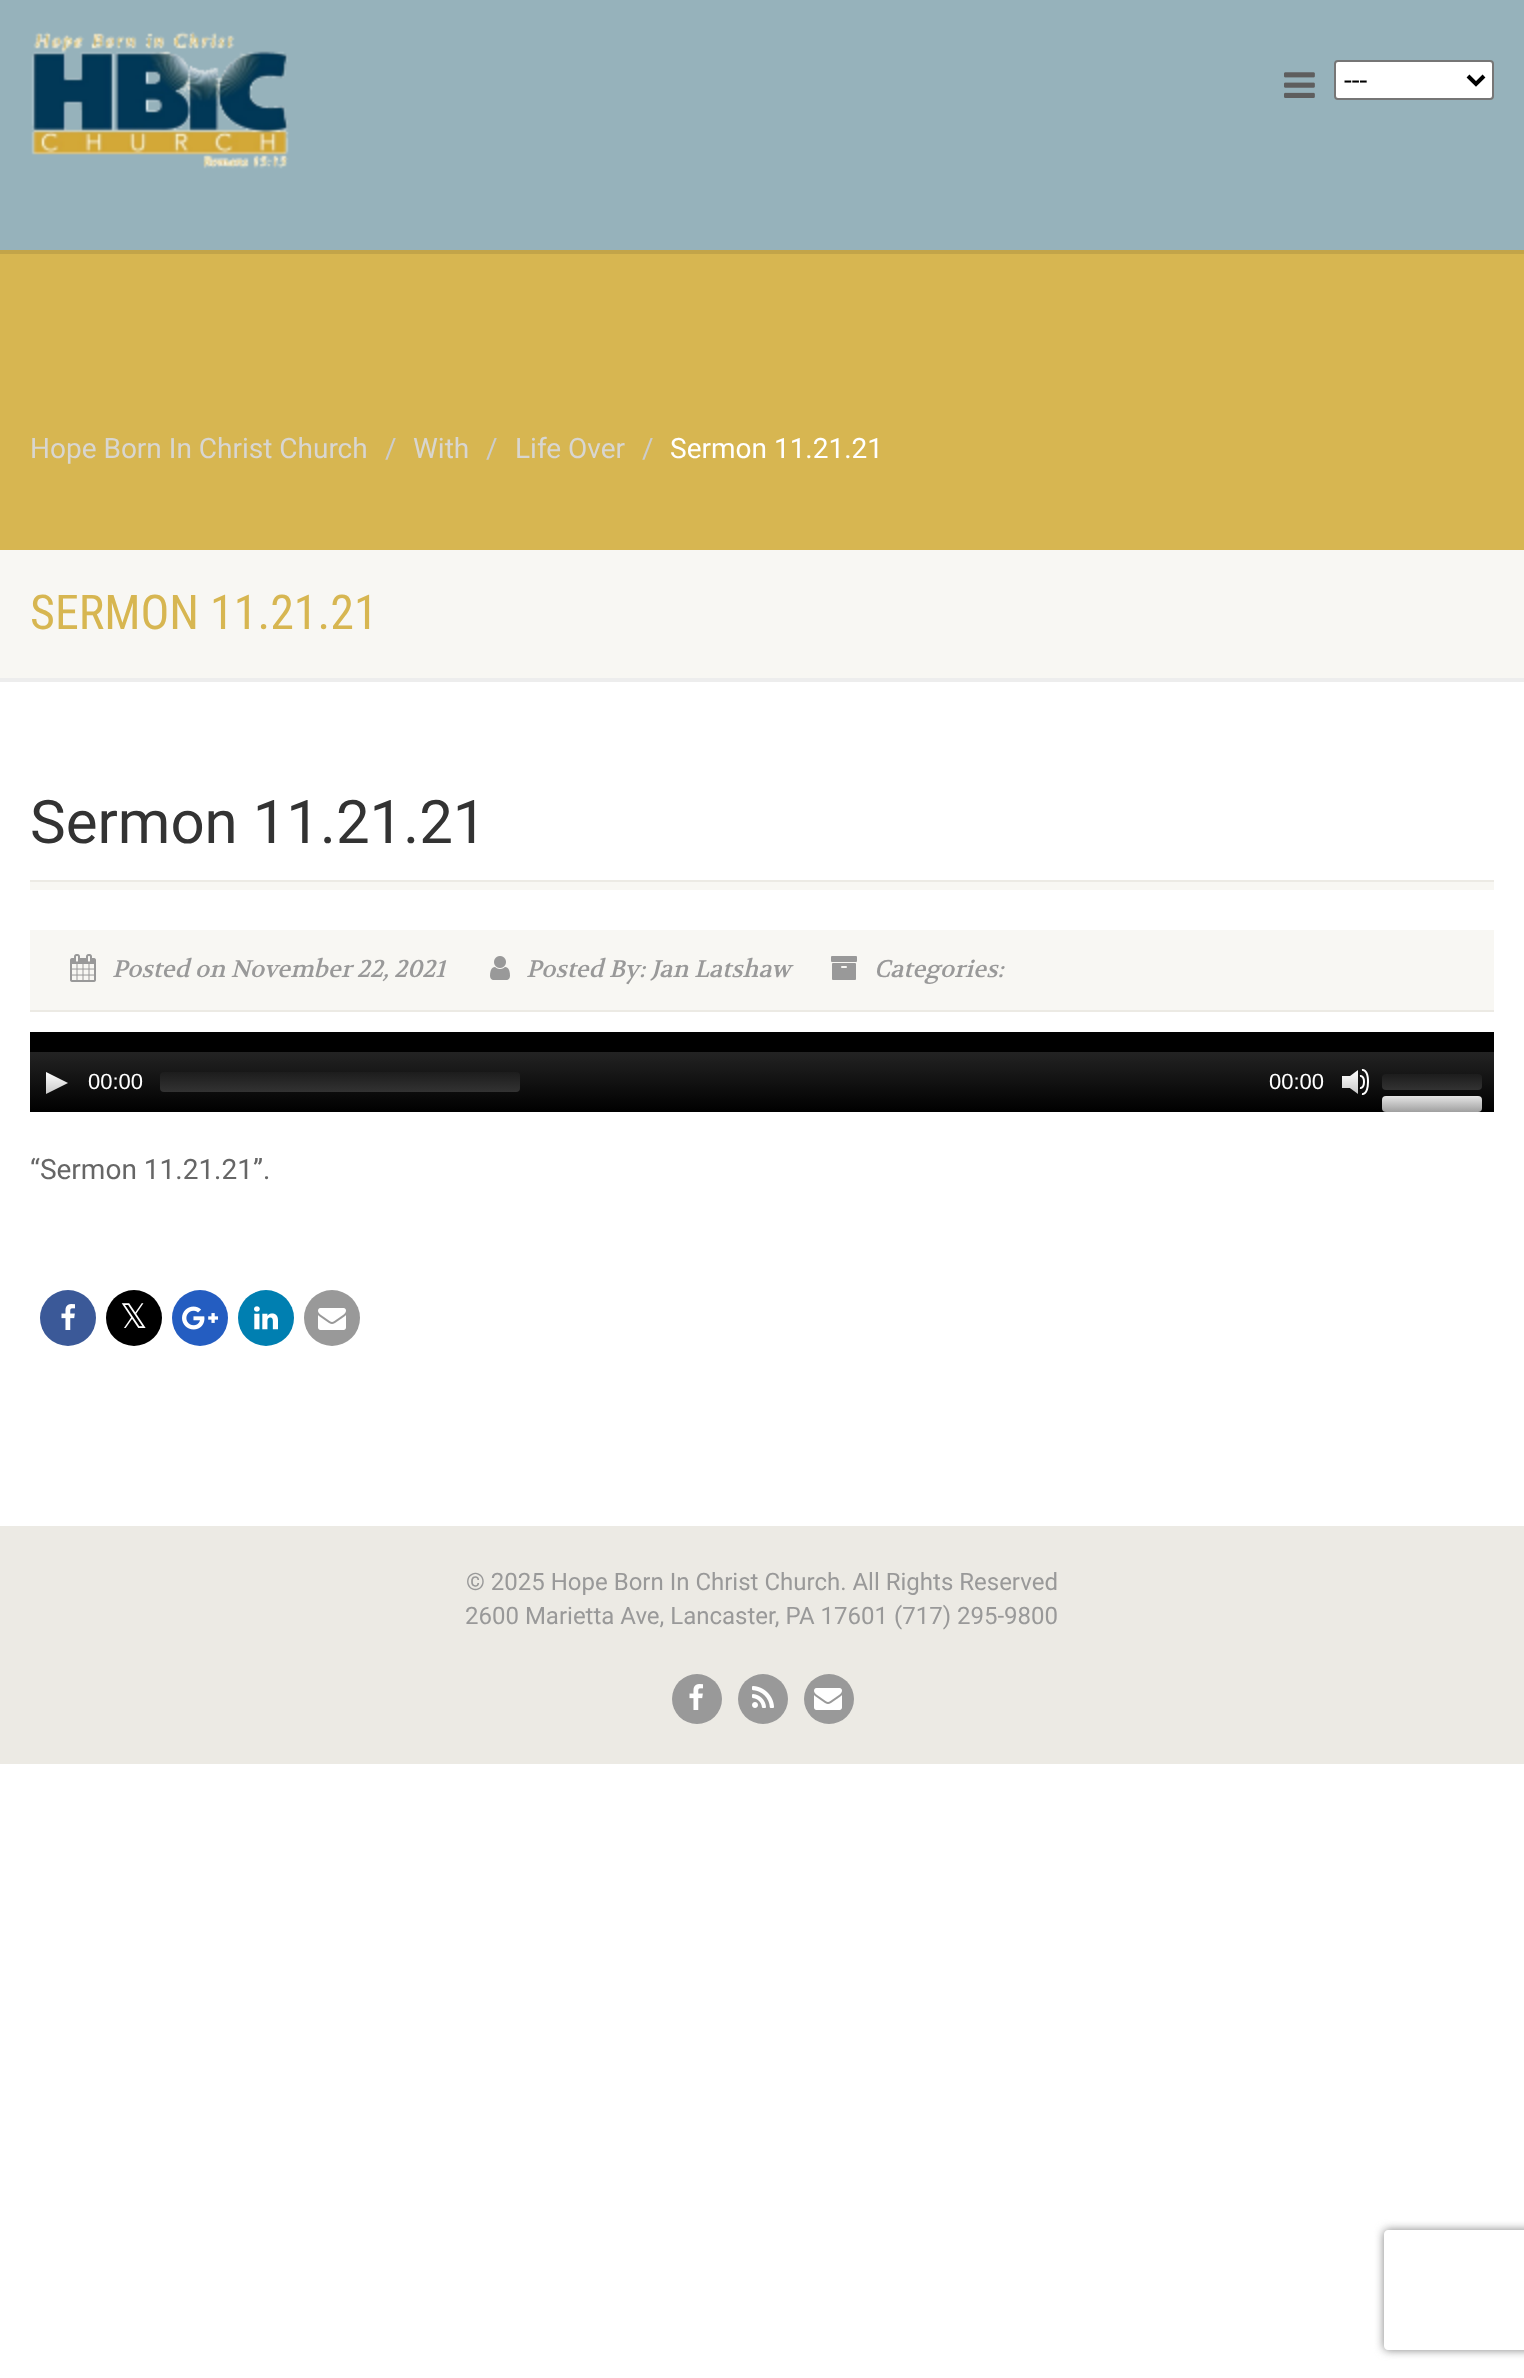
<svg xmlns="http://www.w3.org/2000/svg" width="1524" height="2378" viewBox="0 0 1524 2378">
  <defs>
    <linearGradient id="g1" gradientUnits="userSpaceOnUse" x1="762" y1="1052" x2="762" y2="1112"><stop offset="0" stop-color="#232323"/><stop offset="1" stop-color="#000"/></linearGradient>
    <linearGradient id="g2" gradientUnits="userSpaceOnUse" x1="340" y1="1072" x2="340" y2="1092"><stop offset="0" stop-color="#1e1e1e" stop-opacity="0.8"/><stop offset="1" stop-color="#3c3c3c" stop-opacity="0.8"/></linearGradient>
    <linearGradient id="g3" gradientUnits="userSpaceOnUse" x1="1432" y1="1074" x2="1432" y2="1090"><stop offset="0" stop-color="#1e1e1e" stop-opacity="0.8"/><stop offset="1" stop-color="#3c3c3c" stop-opacity="0.8"/></linearGradient>
    <linearGradient id="g4" gradientUnits="userSpaceOnUse" x1="1432" y1="1096" x2="1432" y2="1112"><stop offset="0" stop-color="#fff" stop-opacity="0.9"/><stop offset="1" stop-color="#c8c8c8" stop-opacity="0.8"/></linearGradient>
    <clipPath id="clip1"><path d="M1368 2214H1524V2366H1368ZM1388 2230H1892C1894 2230 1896 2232 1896 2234V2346C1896 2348 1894 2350 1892 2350H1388C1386 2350 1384 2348 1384 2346V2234C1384 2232 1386 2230 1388 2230Z" clip-rule="evenodd"/></clipPath>
  </defs>
  <rect width="100%" height="100%" fill="#fff"/>
  <path d="M0 250h1524v4H0z" fill="#c2a449"/>
  <path d="M0 0h1524v250H0z" fill="#96b2bb"/>
  <image x="31" y="31" width="258" height="138" href="img/1.png"/>
  <image x="1284" y="72" width="31" height="26" href="img/2.png"/>
  <rect x="1335" y="61" width="158" height="38" rx="3" fill="#fff" stroke="#767676" stroke-width="2"/>
  <path d="M1468 76L1476 84L1484 76" fill="none" stroke="#000" stroke-width="4"/>
  <path d="M0 254h1524v296H0z" fill="#d7b651"/>
  <path d="M0 678h1524v4H0z" fill="#ededed"/>
  <path d="M0 550h1524v128H0z" fill="#f8f7f3"/>
  <path d="M30 880h1464v2H30z" fill="#eceae4"/>
  <path d="M30 882h1464v8H30z" fill="#f8f7f3"/>
  <path d="M30 930h1464v80H30z" fill="#f8f7f3"/>
  <path d="M30 1010h1464v2H30z" fill="#eceae4"/>
  <image x="70" y="954" width="26" height="28" href="img/3.png"/>
  <image x="490" y="956" width="20" height="24" href="img/4.png"/>
  <image x="831" y="956" width="26" height="24" href="img/5.png"/>
  <path d="M30 1032h1464v20H30z" fill="#000"/>
  <path d="M30 1052h1464v60H30z" fill="url(#g1)"/>
  <image x="46" y="1072" width="22" height="22" href="img/6.png"/>
  <rect x="160" y="1072" width="360" height="20" rx="4" fill="url(#g2)"/>
  <image x="1342" y="1069" width="27" height="26" href="img/7.png"/>
  <rect x="1382" y="1074" width="100" height="16" rx="4" fill="url(#g3)"/>
  <rect x="1382" y="1096" width="100" height="16" rx="4" fill="url(#g4)"/>
  <circle cx="68" cy="1318" r="28" fill="#3b5998"/>
  <image x="61" y="1304" width="14" height="26" href="img/8.png"/>
  <circle cx="134" cy="1318" r="28" fill="#000"/>
  <circle cx="200" cy="1318" r="28" fill="#245dc1"/>
  <image x="182" y="1306" width="36" height="24" href="img/9.png"/>
  <circle cx="266" cy="1318" r="28" fill="#007fb1"/>
  <image x="254" y="1306" width="24" height="24" href="img/10.png"/>
  <circle cx="332" cy="1318" r="28" fill="#999"/>
  <image x="318" y="1308" width="28" height="22" href="img/11.png"/>
  <path d="M0 1526h1524v238H0z" fill="#eceae4"/>
  <circle cx="697" cy="1699" r="25" fill="#999"/>
  <image x="689" y="1684" width="14" height="26" href="img/12.png"/>
  <circle cx="763" cy="1699" r="25" fill="#999"/>
  <image x="752" y="1686" width="22" height="22" href="img/13.png"/>
  <circle cx="829" cy="1699" r="25" fill="#999"/>
  <image x="814" y="1688" width="28" height="22" href="img/11.png"/>
  <g clip-path="url(#clip1)">
    <rect x="1384" y="2230" width="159" height="120" rx="4" fill="#808080" filter="blur(5px)"/>
  </g>
  <text x="1344" y="90" font-family="Roboto" font-size="28" fill="#000">---</text>
  <text x="30" y="458" font-family="Roboto" font-size="28" fill="#d8d6d1">Hope Born In Christ Church</text>
  <text x="385" y="458" font-family="Roboto" font-size="28" fill="#ccc">/</text>
  <text x="413" y="458" font-family="Roboto" font-size="28" fill="#d8d6d1">With</text>
  <text x="486" y="458" font-family="Roboto" font-size="28" fill="#ccc">/</text>
  <text x="515" y="458" font-family="Roboto" font-size="28" fill="#d8d6d1">Life Over</text>
  <text x="642" y="458" font-family="Roboto" font-size="28" fill="#ccc">/</text>
  <text x="670" y="458" font-family="Roboto" font-size="28" fill="#fff">Sermon 11.21.21</text>
  <text x="30" y="629" font-family="Roboto Condensed" font-size="48" fill="#d7b651">SERMON 11.21.21</text>
  <text x="30" y="843" font-family="Roboto" font-size="60" fill="#333">Sermon 11.21.21</text>
  <g font-family="Volkhov" font-size="24" font-style="italic" fill="#999">
    <text x="112" y="977">Posted on November 22, 2021</text>
    <text x="526" y="977">Posted By: Jan Latshaw</text>
    <text x="874" y="977">Categories:</text>
  </g>
  <g font-family="Liberation Sans" font-size="22" fill="#fff">
    <text x="88" y="1089">00:00</text>
    <text x="1269" y="1089">00:00</text>
  </g>
  <text x="30" y="1179" font-family="Roboto" font-size="28" fill="#666">“Sermon 11.21.21”.</text>
  <text x="120" y="1328" font-family="DejaVu Sans" font-size="34" fill="#fff">𝕏</text>
  <g font-family="Roboto" font-size="24" fill="#999">
    <text x="466" y="1590">© 2025 Hope Born In Christ Church. All Rights Reserved</text>
    <text x="465" y="1624">2600 Marietta Ave, Lancaster, PA 17601 (717) 295-9800</text>
  </g>
</svg>
